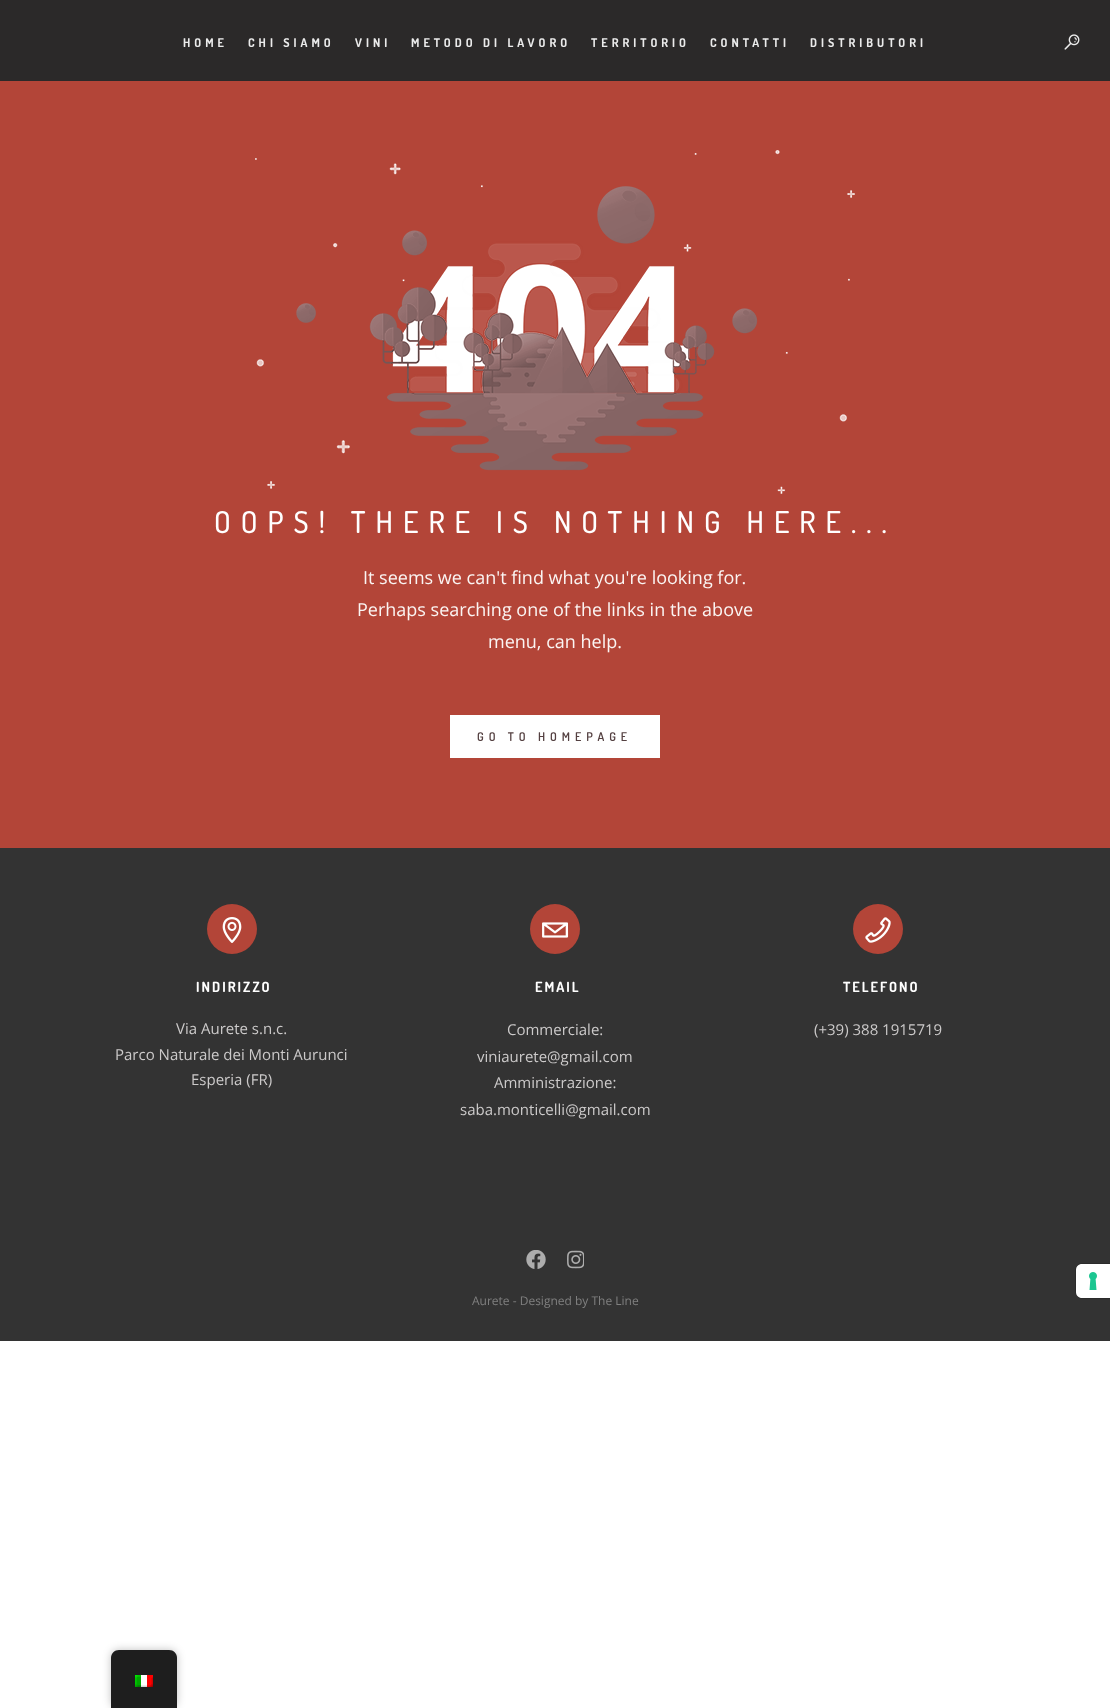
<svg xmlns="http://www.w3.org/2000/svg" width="1110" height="1708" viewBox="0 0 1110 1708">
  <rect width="100%" height="100%" fill="#fff"/>
  <path d="M0 0h1110v81H0z" fill="#2b2929"/>
  <image x="1064" y="34" width="16" height="16" href="img/1.png"/>
  <path d="M0 81h1110v767H0z" fill="#b34538"/>
  <image x="255" y="150" width="600" height="344" href="img/2.png"/>
  <path d="M450 715h210v43H450z" fill="#fff"/>
  <path d="M0 848h1110v493H0z" fill="#333"/>
  <circle cx="232" cy="929" r="25" fill="#b34538"/>
  <image x="222" y="917" width="20" height="26" href="img/3.png"/>
  <circle cx="555" cy="929" r="25" fill="#b34538"/>
  <image x="542" y="922" width="27" height="16" href="img/4.png"/>
  <circle cx="878" cy="929" r="25" fill="#b34538"/>
  <image x="865" y="917" width="26" height="26" href="img/5.png"/>
  <image x="526" y="1250" width="20" height="19" href="img/6.png"/>
  <image x="567" y="1250" width="17" height="19" href="img/7.png"/>
  <path d="M1082 1263.5H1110.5V1298.5H1082C1078.5 1298.5 1075.5 1295.5 1075.5 1292V1270C1075.5 1266.5 1078.5 1263.5 1082 1263.5Z" fill="none" stroke="#2b2b2b"/>
  <path d="M1082 1264H1110V1298H1082C1078.5 1298 1076 1295.5 1076 1292V1270C1076 1266.5 1078.5 1264 1082 1264Z" fill="#fff"/>
  <image x="1089" y="1272" width="8" height="18" href="img/8.png"/>
  <rect x="111" y="1650" width="66" height="58" rx="8" fill="#00000040" filter="blur(4px)"/>
  <path d="M119 1650H169C173.5 1650 177 1653.5 177 1658V1708H111V1658C111 1653.5 114.5 1650 119 1650Z" fill="#1e1e1e"/>
  <image x="135" y="1675" width="18" height="12" href="img/9.png"/>
  <g font-family="Dosis" font-size="12" font-weight="bold" letter-spacing="4" fill="#ebebeb">
    <text x="183" y="47">HOME</text>
    <text x="248" y="47">CHI SIAMO</text>
    <text x="355" y="47">VINI</text>
    <text x="411" y="47">METODO DI LAVORO</text>
    <text x="591" y="47">TERRITORIO</text>
    <text x="710" y="47">CONTATTI</text>
    <text x="810" y="47">DISTRIBUTORI</text>
  </g>
  <text x="214" y="533" font-family="Dosis" font-size="30" font-weight="500" letter-spacing="10" fill="#fff">OOPS! THERE IS NOTHING HERE...</text>
  <g font-family="Open Sans" font-size="18" fill="#fbf5f3">
    <text x="363" y="584">It seems we can't find what you're looking for.</text>
    <text x="357" y="616">Perhaps searching one of the links in the above</text>
    <text x="488" y="648">menu, can help.</text>
  </g>
  <text x="477" y="741" font-family="Dosis" font-size="12" font-weight="600" letter-spacing="5" fill="#544041">GO TO HOMEPAGE</text>
  <text x="196" y="992" font-family="Dosis" font-size="14" font-weight="bold" letter-spacing="2" fill="#fff">INDIRIZZO</text>
  <g font-family="Open Sans" font-size="15" fill="#cccaca">
    <text x="176" y="1034">Via Aurete s.n.c.</text>
    <text x="115" y="1060">Parco Naturale dei Monti Aurunci</text>
    <text x="191" y="1085">Esperia (FR)</text>
  </g>
  <text x="535" y="992" font-family="Dosis" font-size="14" font-weight="bold" letter-spacing="2" fill="#fff">EMAIL</text>
  <g font-family="Open Sans" font-size="15" fill="#cccaca">
    <text x="507" y="1035">Commerciale:</text>
    <text x="477" y="1062">viniaurete@gmail.com</text>
    <text x="494" y="1088">Amministrazione:</text>
    <text x="460" y="1115">saba.monticelli@gmail.com</text>
  </g>
  <text x="843" y="992" font-family="Dosis" font-size="14" font-weight="bold" letter-spacing="2" fill="#fff">TELEFONO</text>
  <text x="814" y="1035" font-family="Open Sans" font-size="15" fill="#cccaca">(+39) 388 1915719</text>
  <text x="472" y="1305" font-family="Open Sans" font-size="12" fill="#808080">Aurete - Designed by The Line</text>
</svg>
